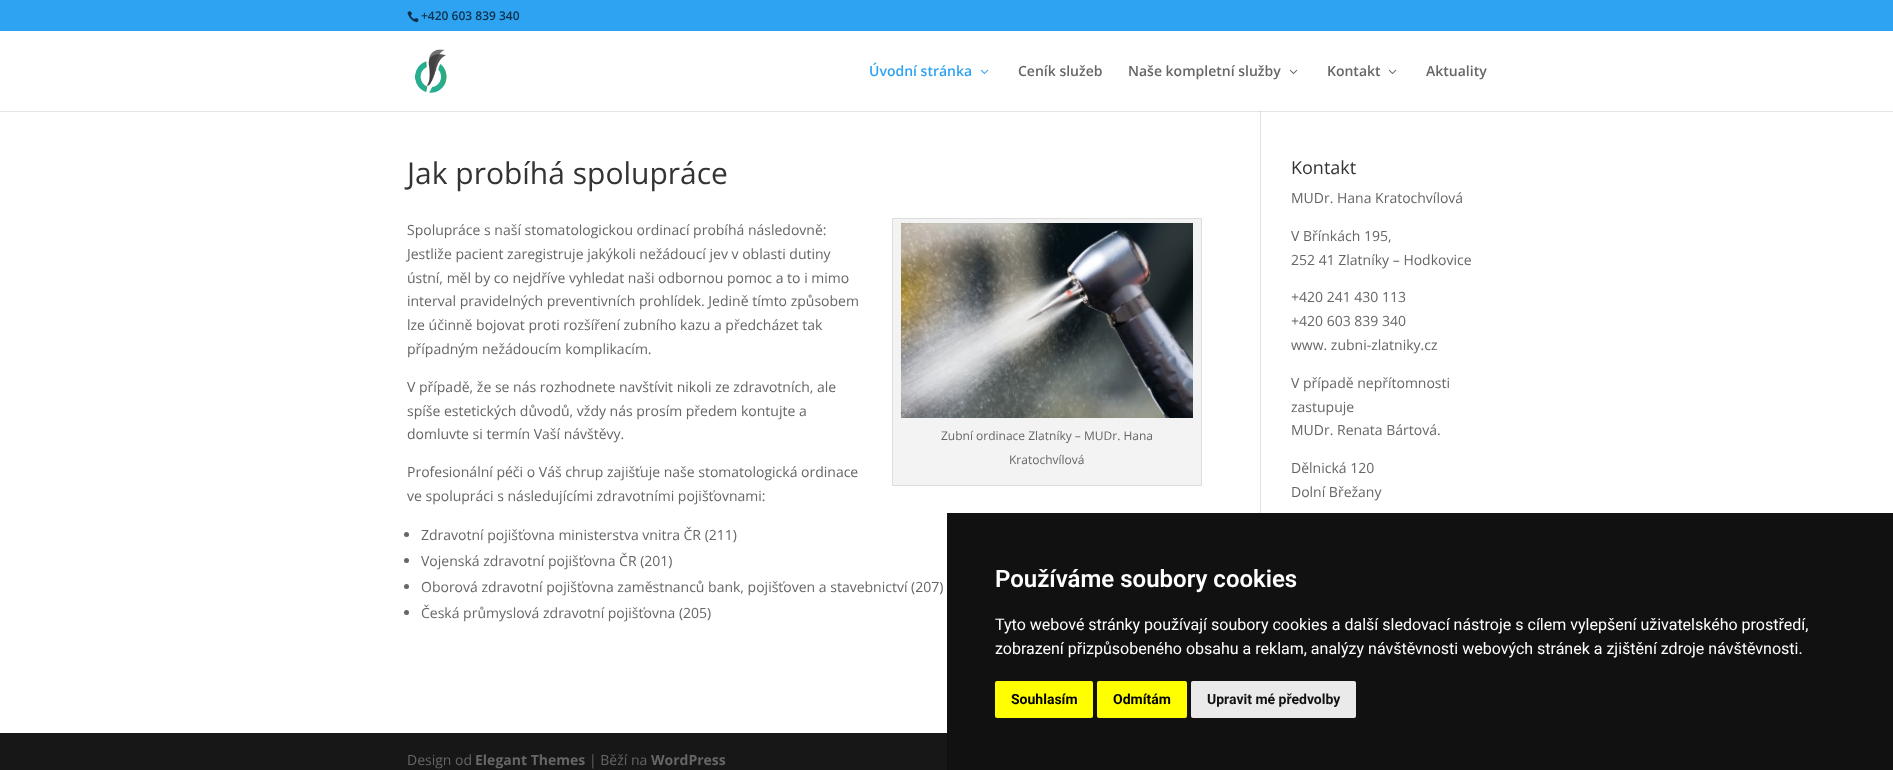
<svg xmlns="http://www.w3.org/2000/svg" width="1893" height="770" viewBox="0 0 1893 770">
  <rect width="100%" height="100%" fill="#fff"/>
  <path d="M0 0h1893v31H0z" fill="#2ea3f2"/>
  <image x="407" y="11" width="12" height="12" href="img/1.png"/>
  <path d="M1260 111h1v402H1260z" fill="#e2e2e2"/>
  <path d="M0 111h1893v1H0z" fill="#0000001a"/>
  <image x="415" y="49" width="32" height="44" href="img/2.png"/>
  <image x="980" y="69" width="9" height="5" href="img/3.png"/>
  <image x="1289" y="69" width="9" height="5" href="img/4.png"/>
  <image x="1388" y="69" width="9" height="5" href="img/4.png"/>
  <path d="M892.5 218.5h309v267H892.5z" fill="#f3f3f3" stroke="#ddd"/>
  <image x="901" y="223" width="292" height="195" href="img/5.png"/>
  <circle cx="406.5" cy="534.5" r="2.5" fill="#666"/>
  <circle cx="406.5" cy="560.5" r="2.5" fill="#666"/>
  <circle cx="406.5" cy="586.5" r="2.5" fill="#666"/>
  <circle cx="406.5" cy="612.5" r="2.5" fill="#666"/>
  <path d="M0 733h947v37H0z" fill="#171717"/>
  <path d="M947 513h946v257H947z" fill="#111"/>
  <rect x="995" y="681" width="98" height="37" rx="2" fill="#ff0"/>
  <rect x="1097" y="681" width="90" height="37" rx="2" fill="#ff0"/>
  <rect x="1191" y="681" width="165" height="37" rx="2" fill="#eaeaea"/>
  <text x="421" y="20" font-family="Open Sans" font-size="12" font-weight="600" fill="#0e3149">+420 603 839 340</text>
  <text x="869" y="76" font-family="Open Sans" font-size="14" font-weight="600" fill="#2ea3f2">Úvodní stránka</text>
  <g font-family="Open Sans" font-size="14" font-weight="600" fill="#666">
    <text x="1018" y="76">Ceník služeb</text>
    <text x="1128" y="76">Naše kompletní služby</text>
    <text x="1327" y="76">Kontakt</text>
    <text x="1426" y="76">Aktuality</text>
  </g>
  <text x="407" y="184" font-family="Open Sans" font-size="30" fill="#333">Jak probíhá spolupráce</text>
  <g font-family="Open Sans" font-size="14" fill="#666">
    <text x="407" y="235">Spolupráce s naší stomatologickou ordinací probíhá následovně:</text>
    <text x="407" y="259">Jestliže pacient zaregistruje jakýkoli nežádoucí jev v oblasti dutiny</text>
    <text x="407" y="283">ústní, měl by co nejdříve vyhledat naši odbornou pomoc a to i mimo</text>
    <text x="407" y="306">interval pravidelných preventivních prohlídek. Jedině tímto způsobem</text>
    <text x="407" y="330">lze účinně bojovat proti rozšíření zubního kazu a předcházet tak</text>
    <text x="407" y="354">případným nežádoucím komplikacím.</text>
    <text x="407" y="392">V případě, že se nás rozhodnete navštívit nikoli ze zdravotních, ale</text>
    <text x="407" y="416">spíše estetických důvodů, vždy nás prosím předem kontujte a</text>
    <text x="407" y="439">domluvte si termín Vaší návštěvy.</text>
  </g>
  <g font-family="Open Sans" font-size="12" fill="#666">
    <text x="941" y="440">Zubní ordinace Zlatníky – MUDr. Hana</text>
    <text x="1009" y="464">Kratochvílová</text>
  </g>
  <g font-family="Open Sans" font-size="14" fill="#666">
    <text x="407" y="477">Profesionální péči o Váš chrup zajišťuje naše stomatologická ordinace</text>
    <text x="407" y="501">ve spolupráci s následujícími zdravotními pojišťovnami:</text>
    <text x="421" y="540">Zdravotní pojišťovna ministerstva vnitra ČR (211)</text>
    <text x="421" y="566">Vojenská zdravotní pojišťovna ČR (201)</text>
    <text x="421" y="592">Oborová zdravotní pojišťovna zaměstnanců bank, pojišťoven a stavebnictví (207)</text>
    <text x="421" y="618">Česká průmyslová zdravotní pojišťovna (205)</text>
  </g>
  <text x="1291" y="174" font-family="Open Sans" font-size="18" fill="#333">Kontakt</text>
  <g font-family="Open Sans" font-size="14" fill="#666">
    <text x="1291" y="203">MUDr. Hana Kratochvílová</text>
    <text x="1291" y="241">V Břínkách 195,</text>
    <text x="1291" y="265">252 41 Zlatníky – Hodkovice</text>
    <text x="1291" y="302">+420 241 430 113</text>
    <text x="1291" y="326">+420 603 839 340</text>
    <text x="1291" y="350">www. zubni-zlatniky.cz</text>
    <text x="1291" y="388">V případě nepřítomnosti</text>
    <text x="1291" y="412">zastupuje</text>
    <text x="1291" y="435">MUDr. Renata Bártová.</text>
    <text x="1291" y="473">Dělnická 120</text>
    <text x="1291" y="497">Dolní Břežany</text>
    <text x="407" y="765">Design od</text>
  </g>
  <text x="475" y="765" font-family="Open Sans" font-size="14" font-weight="bold" fill="#666">Elegant Themes</text>
  <text x="589" y="765" font-family="Open Sans" font-size="14" fill="#666">| Běží na</text>
  <text x="651" y="765" font-family="Open Sans" font-size="14" font-weight="bold" fill="#666">WordPress</text>
  <text x="995" y="587" font-family="Roboto" font-size="24" font-weight="600" fill="#fff">Používáme soubory cookies</text>
  <g font-family="Roboto" font-size="16" fill="#fff">
    <text x="995" y="630">Tyto webové stránky používají soubory cookies a další sledovací nástroje s cílem vylepšení uživatelského prostředí,</text>
    <text x="995" y="654">zobrazení přizpůsobeného obsahu a reklam, analýzy návštěvnosti webových stránek a zjištění zdroje návštěvnosti.</text>
  </g>
  <g font-family="Roboto" font-size="14" font-weight="bold" fill="#000">
    <text x="1011" y="704">Souhlasím</text>
    <text x="1113" y="704">Odmítám</text>
  </g>
  <text x="1207" y="704" font-family="Roboto" font-size="14" font-weight="bold" fill="#111">Upravit mé předvolby</text>
</svg>
